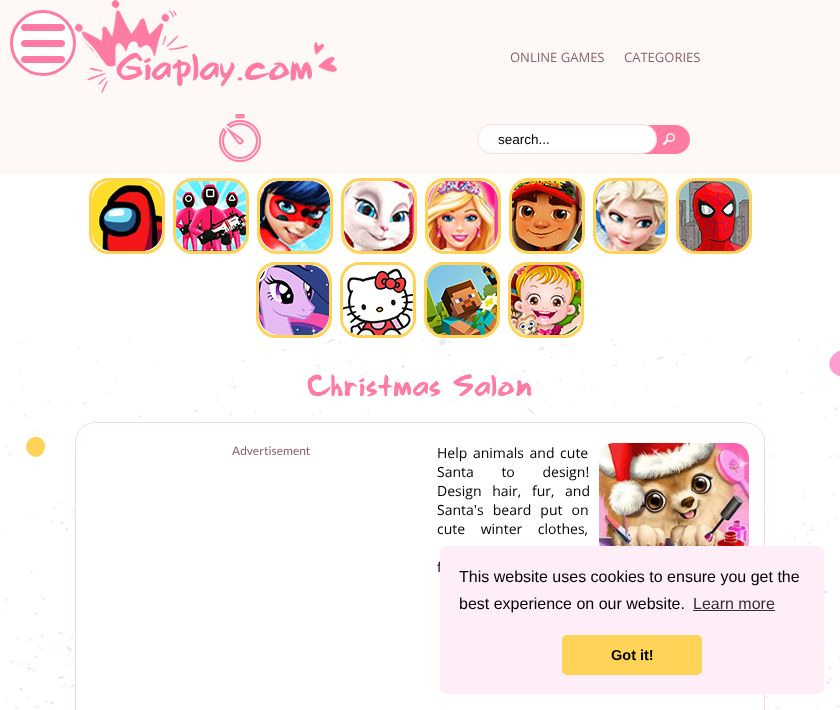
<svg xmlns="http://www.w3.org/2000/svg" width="840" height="710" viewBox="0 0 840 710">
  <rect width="100%" height="100%" fill="#fff"/>
  <path d="M0 0h840v174H0z" fill="#fef9f7"/>
  <image x="75" y="0" width="262" height="93" href="img/2.png"/>
  <circle cx="43" cy="43" r="33" fill="#fff"/>
  <image x="21" y="24" width="44" height="39" href="img/1.png"/>
  <circle cx="43" cy="43" r="31.5" fill="none" stroke="#fe7ba3" stroke-width="3"/>
  <image x="219" y="114" width="42" height="48" href="img/3.png"/>
  <path d="M637 125H675.5C683.5 125 690 131.5 690 139.5C690 147.5 683.5 154 675.5 154H637Z" fill="#fe7ba3"/>
  <rect x="477" y="124" width="180" height="30" rx="15" fill="#fff"/>
  <rect x="477.5" y="124.5" width="179" height="29" rx="14.5" fill="none" stroke="#fe7ba34d"/>
  <image x="662" y="133" width="13" height="13" href="img/4.png"/>
  <rect x="90.5" y="179.5" width="73" height="73" rx="18.5" fill="none" stroke="#ffd357" stroke-width="3"/>
  <image x="92" y="181" width="70" height="70" href="img/5.png"/>
  <rect x="174.5" y="179.5" width="73" height="73" rx="18.5" fill="none" stroke="#ffd357" stroke-width="3"/>
  <image x="176" y="181" width="70" height="70" href="img/6.png"/>
  <rect x="258.5" y="179.5" width="73" height="73" rx="18.5" fill="none" stroke="#ffd357" stroke-width="3"/>
  <image x="260" y="181" width="70" height="70" href="img/7.png"/>
  <rect x="342.5" y="179.5" width="73" height="73" rx="18.5" fill="none" stroke="#ffd357" stroke-width="3"/>
  <image x="344" y="181" width="70" height="70" href="img/8.png"/>
  <rect x="426.5" y="179.5" width="73" height="73" rx="18.5" fill="none" stroke="#ffd357" stroke-width="3"/>
  <image x="428" y="181" width="70" height="70" href="img/9.png"/>
  <rect x="510.5" y="179.5" width="73" height="73" rx="18.5" fill="none" stroke="#ffd357" stroke-width="3"/>
  <image x="512" y="181" width="70" height="70" href="img/10.png"/>
  <rect x="594.5" y="179.5" width="72" height="73" rx="18.5" fill="none" stroke="#ffd357" stroke-width="3"/>
  <image x="596" y="181" width="69" height="70" href="img/11.png"/>
  <rect x="677.5" y="179.5" width="73" height="73" rx="18.5" fill="none" stroke="#ffd357" stroke-width="3"/>
  <image x="679" y="181" width="70" height="70" href="img/12.png"/>
  <rect x="257.5" y="263.5" width="73" height="73" rx="18.5" fill="none" stroke="#ffd357" stroke-width="3"/>
  <image x="259" y="265" width="70" height="70" href="img/13.png"/>
  <rect x="341.5" y="263.5" width="73" height="73" rx="18.5" fill="none" stroke="#ffd357" stroke-width="3"/>
  <image x="343" y="265" width="70" height="70" href="img/14.png"/>
  <rect x="425.5" y="263.5" width="73" height="73" rx="18.5" fill="none" stroke="#ffd357" stroke-width="3"/>
  <image x="427" y="265" width="70" height="70" href="img/15.png"/>
  <rect x="509.5" y="263.5" width="73" height="73" rx="18.5" fill="none" stroke="#ffd357" stroke-width="3"/>
  <image x="511" y="265" width="70" height="70" href="img/16.png"/>
  <image x="2" y="339" width="838" height="370" href="img/17.png"/>
  <rect x="75.5" y="422.5" width="689" height="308" rx="19.5" fill="#fff" stroke="#ffd7e3"/>
  <image x="599" y="443" width="150" height="103" href="img/18.png"/>
  <g font-family="Open Sans" font-size="13" fill="#8b5f6d">
    <text x="510" y="62">ONLINE GAMES</text>
    <text x="624" y="62">CATEGORIES</text>
  </g>
  <text x="498" y="144" font-family="Liberation Sans" font-size="13.5" fill="#000">search...</text>
  <text x="307" y="396" font-family="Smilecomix" font-size="24" fill="#fe7ba3">Christmas Salon</text>
  <text x="232" y="455" font-family="Lato" font-size="12" fill="#8b5f6d">Advertisement</text>
  <g font-family="Open Sans" font-size="14" fill="#000">
    <text x="437" y="458" word-spacing="2">Help animals and cute</text>
    <text x="437" y="477" word-spacing="24">Santa to design!</text>
    <text x="437" y="496" word-spacing="7">Design hair, fur, and</text>
    <text x="437" y="515" word-spacing="5.5">Santa's beard put on</text>
    <text x="437" y="534" word-spacing="12">cute winter clothes,</text>
    <text x="437" y="572" word-spacing="2">f</text>
  </g>
  <rect x="440" y="546" width="384" height="148" rx="5" fill="#ffeef7"/>
  <g font-family="Liberation Sans" font-size="16" fill="#000">
    <text x="459" y="582">This website uses cookies to ensure you get the</text>
    <text x="459" y="609">best experience on our website.</text>
  </g>
  <text x="693" y="609" font-family="Liberation Sans" font-size="16" fill="#333031">Learn more</text>
  <path d="M693 610h82v1H693z" fill="#333031"/>
  <rect x="562" y="635" width="140" height="40" rx="5" fill="#ffd357"/>
  <text x="611" y="660" font-family="Liberation Sans" font-size="14.5" font-weight="bold" fill="#000">Got it!</text>
</svg>
